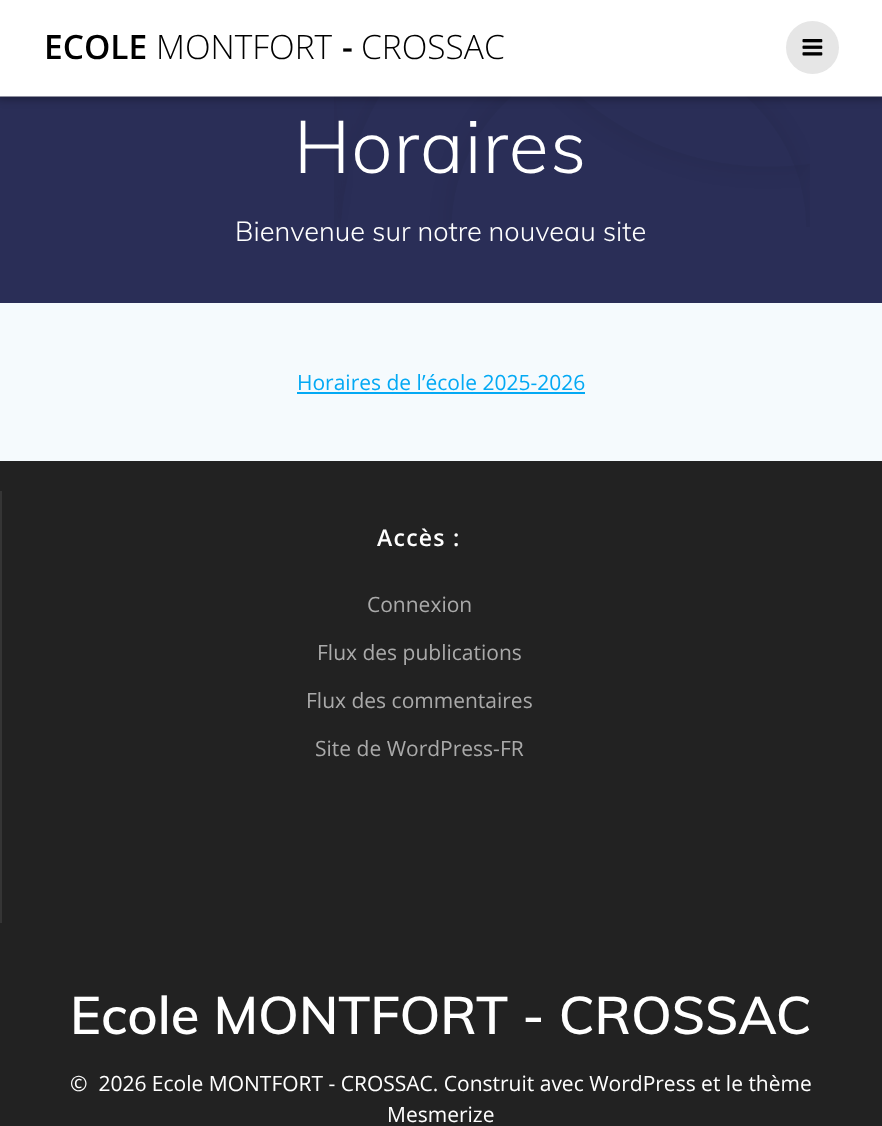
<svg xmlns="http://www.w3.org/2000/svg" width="882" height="1126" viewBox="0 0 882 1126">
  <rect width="100%" height="100%" fill="#2a2e57"/>
  <image x="334" y="96" width="476" height="131" href="img/2.png"/>
  <path d="M-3 -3h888v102H-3z" fill="#00000054" filter="blur(4px)"/>
  <path d="M0 0h882v96H0z" fill="#fff"/>
  <path d="M0 96h882v1H0z" fill="#ffffff80"/>
  <circle cx="812.5" cy="47.5" r="26.5" fill="#e6e6e6"/>
  <image x="802" y="39" width="21" height="17" href="img/1.png"/>
  <path d="M0 303h882v158H0z" fill="#f5fafd"/>
  <path d="M297 392h288v2H297z" fill="#03a9f4"/>
  <path d="M0 461h882v665H0z" fill="#222"/>
  <path d="M0 491h2v432H0z" fill="#353535"/>
  <text x="44" y="59" font-family="Open Sans" font-size="33.5" font-weight="600" fill="#000">ECOLE</text>
  <text x="156" y="59" font-family="Open Sans" font-size="33.5" font-weight="300" fill="#000">MONTFORT</text>
  <text x="342" y="59" font-family="Open Sans" font-size="33.5" font-weight="600" fill="#000">-</text>
  <text x="361" y="59" font-family="Open Sans" font-size="33.5" font-weight="300" fill="#000">CROSSAC</text>
  <text x="294" y="173" font-family="Muli" font-size="73.5" font-weight="300" letter-spacing="1.25" fill="#fff">Horaires</text>
  <text x="235" y="241" font-family="Muli" font-size="27.25" font-weight="300" fill="#fff">Bienvenue sur notre nouveau site</text>
  <text x="297" y="390" font-family="Open Sans" font-size="21" fill="#03a9f4">Horaires de l’école 2025-2026</text>
  <text x="377" y="546" font-family="Open Sans" font-size="23" font-weight="600" letter-spacing="1.25" fill="#fff">Accès :</text>
  <g font-family="Open Sans" font-size="21" fill="#aaa">
    <text x="367" y="612">Connexion</text>
    <text x="317" y="660">Flux des publications</text>
    <text x="306" y="708">Flux des commentaires</text>
    <text x="315" y="756">Site de WordPress-FR</text>
  </g>
  <text x="70" y="1034" font-family="Muli" font-size="52.5" font-weight="600" fill="#fff">Ecole MONTFORT - CROSSAC</text>
  <g font-family="Open Sans" font-size="21" fill="#fff">
    <text x="70" y="1091" xml:space="preserve">©  2026 Ecole MONTFORT - CROSSAC. Construit avec WordPress et le thème</text>
    <text x="387" y="1122">Mesmerize</text>
  </g>
</svg>
